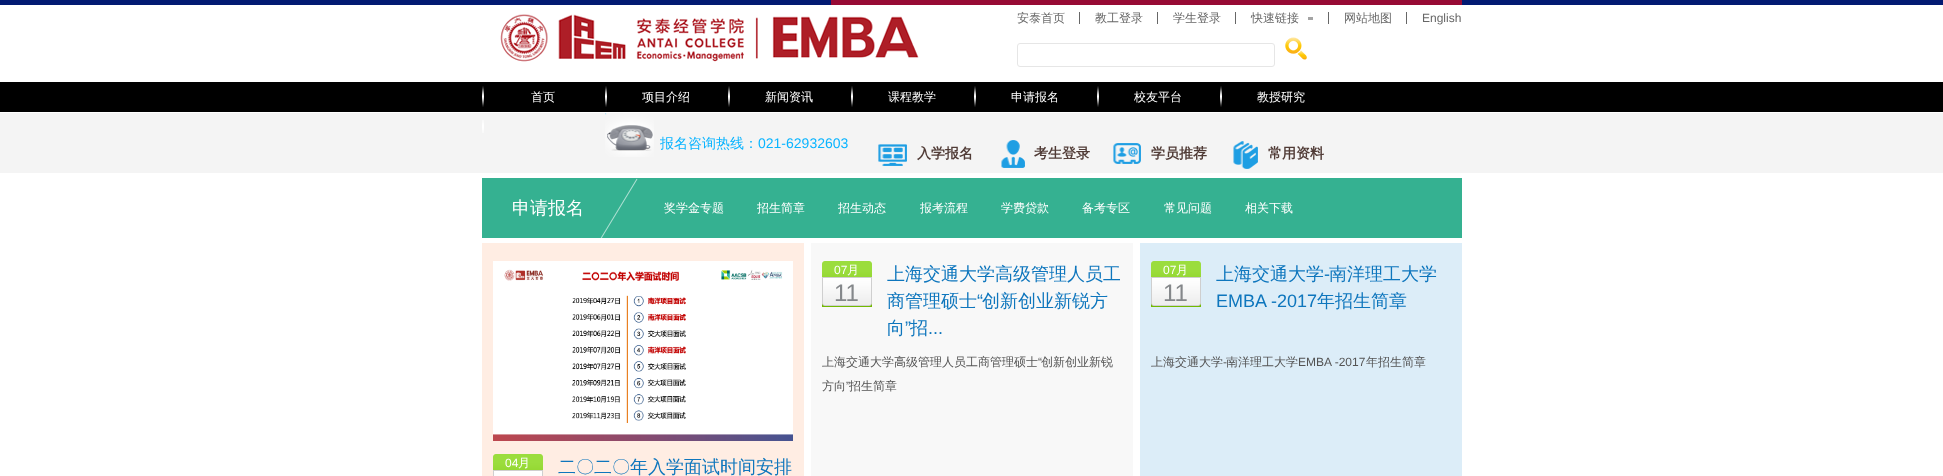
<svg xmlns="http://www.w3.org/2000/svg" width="1943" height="476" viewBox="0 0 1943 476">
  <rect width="100%" height="100%" fill="#fff"/>
  <path d="M0 0h1943v5H0z" fill="#021a72"/>
  <image x="831" y="0" width="631" height="5" href="img/1.png"/>
  <image x="500" y="14" width="419" height="48" href="img/2.png"/>
  <path d="M1079 12h1v12H1079z" fill="#676767"/>
  <path d="M1157 12h1v12H1157z" fill="#676767"/>
  <path d="M1235 12h1v12H1235z" fill="#676767"/>
  <path d="M1328 12h1v12H1328z" fill="#676767"/>
  <path d="M1308 17h5v3H1308z" fill="#a4a4a4"/>
  <path d="M1406 12h1v12H1406z" fill="#676767"/>
  <rect x="1017.5" y="43.5" width="257" height="23" rx="2.5" fill="none" stroke="#e6e6e6"/>
  <image x="1285" y="37" width="22" height="23" href="img/3.png"/>
  <path d="M0 82h1943v30H0z" fill="#000"/>
  <image x="482" y="86" width="2" height="21" href="img/4.png"/>
  <image x="605" y="86" width="2" height="21" href="img/4.png"/>
  <image x="728" y="86" width="2" height="21" href="img/4.png"/>
  <image x="851" y="86" width="2" height="21" href="img/4.png"/>
  <image x="974" y="86" width="2" height="21" href="img/4.png"/>
  <image x="1097" y="86" width="2" height="21" href="img/4.png"/>
  <image x="1220" y="86" width="2" height="21" href="img/4.png"/>
  <path d="M0 113h1943v60H0z" fill="#f4f4f4"/>
  <image x="482" y="120" width="2" height="13" href="img/5.png"/>
  <image x="605" y="113" width="49" height="44" href="img/6.png"/>
  <image x="878" y="144" width="29" height="22" href="img/7.png"/>
  <image x="1001" y="140" width="24" height="28" href="img/8.png"/>
  <image x="1113" y="143" width="28" height="21" href="img/9.png"/>
  <image x="1233" y="141" width="25" height="28" href="img/10.png"/>
  <path d="M482 178h980v60H482z" fill="#35b191"/>
  <image x="600" y="178" width="38" height="60" href="img/11.png"/>
  <path d="M811 243h322v233H811z" fill="#f8f8f8"/>
  <image x="822" y="261" width="50" height="46" href="img/12.png"/>
  <path d="M1140 243h322v233H1140z" fill="#dcedf8"/>
  <image x="1151" y="261" width="50" height="46" href="img/13.png"/>
  <path d="M482 243h322v233H482z" fill="#ffede3"/>
  <image x="493" y="261" width="300" height="180" href="img/14.png"/>
  <image x="493" y="454" width="50" height="22" href="img/15.png"/>
  <g font-family="WenQuanYi Zen Hei" font-size="12" font-weight="500" fill="#676767">
    <text x="1017" y="22">安泰首页</text>
    <text x="1095" y="22">教工登录</text>
    <text x="1173" y="22">学生登录</text>
    <text x="1251" y="22">快速链接</text>
    <text x="1344" y="22">网站地图</text>
  </g>
  <text x="1422" y="22" font-family="Liberation Sans" font-size="12" fill="#676767">English</text>
  <g font-family="WenQuanYi Zen Hei" font-size="12" font-weight="500" fill="#fff">
    <text x="531" y="101">首页</text>
    <text x="642" y="101">项目介绍</text>
    <text x="765" y="101">新闻资讯</text>
    <text x="888" y="101">课程教学</text>
    <text x="1011" y="101">申请报名</text>
    <text x="1134" y="101">校友平台</text>
    <text x="1257" y="101">教授研究</text>
  </g>
  <text x="660" y="148" font-family="WenQuanYi Zen Hei" font-size="14" font-weight="500" fill="#09b4ff">报名咨询热线：</text>
  <text x="758" y="148" font-family="Liberation Sans" font-size="14" fill="#09b4ff">021-62932603</text>
  <g font-family="WenQuanYi Zen Hei" font-size="14" font-weight="bold" fill="#503b36">
    <text x="917" y="158">入学报名</text>
    <text x="1034" y="158">考生登录</text>
    <text x="1151" y="158">学员推荐</text>
    <text x="1268" y="158">常用资料</text>
  </g>
  <text x="512" y="214" font-family="WenQuanYi Zen Hei" font-size="18" font-weight="500" fill="#fff">申请报名</text>
  <g font-family="WenQuanYi Zen Hei" font-size="12" font-weight="500" fill="#fff">
    <text x="664" y="212">奖学金专题</text>
    <text x="757" y="212">招生简章</text>
    <text x="838" y="212">招生动态</text>
    <text x="920" y="212">报考流程</text>
    <text x="1001" y="212">学费贷款</text>
    <text x="1082" y="212">备考专区</text>
    <text x="1164" y="212">常见问题</text>
    <text x="1245" y="212">相关下载</text>
  </g>
  <text x="834" y="274" font-family="Liberation Sans" font-size="12" fill="#fff">07</text>
  <text x="847" y="274" font-family="WenQuanYi Zen Hei" font-size="12" font-weight="500" fill="#fff">月</text>
  <text x="834" y="301" font-family="Liberation Sans" font-size="24" fill="#84878a">11</text>
  <g font-family="WenQuanYi Zen Hei" font-size="18" font-weight="500" fill="#0e76bd">
    <text x="887" y="280">上海交通大学高级管理人员工</text>
    <text x="887" y="307">商管理硕士</text>
  </g>
  <text x="977" y="307" font-family="Liberation Sans" font-size="18" fill="#0e76bd">“</text>
  <g font-family="WenQuanYi Zen Hei" font-size="18" font-weight="500" fill="#0e76bd">
    <text x="982" y="307">创新创业新锐方</text>
    <text x="887" y="334">向</text>
  </g>
  <text x="905" y="334" font-family="Liberation Sans" font-size="18" fill="#0e76bd">”</text>
  <text x="910" y="334" font-family="WenQuanYi Zen Hei" font-size="18" font-weight="500" fill="#0e76bd">招</text>
  <text x="928" y="334" font-family="Liberation Sans" font-size="18" fill="#0e76bd">...</text>
  <text x="822" y="366" font-family="WenQuanYi Zen Hei" font-size="12" font-weight="500" fill="#545454">上海交通大学高级管理人员工商管理硕士</text>
  <text x="1038" y="366" font-family="Liberation Sans" font-size="12" fill="#545454">“</text>
  <g font-family="WenQuanYi Zen Hei" font-size="12" font-weight="500" fill="#545454">
    <text x="1041" y="366">创新创业新锐</text>
    <text x="822" y="390">方向</text>
  </g>
  <text x="846" y="390" font-family="Liberation Sans" font-size="12" fill="#545454">”</text>
  <text x="849" y="390" font-family="WenQuanYi Zen Hei" font-size="12" font-weight="500" fill="#545454">招生简章</text>
  <text x="1163" y="274" font-family="Liberation Sans" font-size="12" fill="#fff">07</text>
  <text x="1176" y="274" font-family="WenQuanYi Zen Hei" font-size="12" font-weight="500" fill="#fff">月</text>
  <text x="1163" y="301" font-family="Liberation Sans" font-size="24" fill="#84878a">11</text>
  <text x="1216" y="280" font-family="WenQuanYi Zen Hei" font-size="18" font-weight="500" fill="#0e76bd">上海交通大学</text>
  <text x="1324" y="280" font-family="Liberation Sans" font-size="18" fill="#0e76bd">-</text>
  <text x="1329" y="280" font-family="WenQuanYi Zen Hei" font-size="18" font-weight="500" fill="#0e76bd">南洋理工大学</text>
  <text x="1216" y="307" font-family="Liberation Sans" font-size="18" fill="#0e76bd">EMBA -2017</text>
  <text x="1317" y="307" font-family="WenQuanYi Zen Hei" font-size="18" font-weight="500" fill="#0e76bd">年招生简章</text>
  <text x="1151" y="366" font-family="WenQuanYi Zen Hei" font-size="12" font-weight="500" fill="#545454">上海交通大学</text>
  <text x="1223" y="366" font-family="Liberation Sans" font-size="12" fill="#545454">-</text>
  <text x="1226" y="366" font-family="WenQuanYi Zen Hei" font-size="12" font-weight="500" fill="#545454">南洋理工大学</text>
  <text x="1298" y="366" font-family="Liberation Sans" font-size="12" fill="#545454">EMBA -2017</text>
  <text x="1366" y="366" font-family="WenQuanYi Zen Hei" font-size="12" font-weight="500" fill="#545454">年招生简章</text>
  <text x="505" y="467" font-family="Liberation Sans" font-size="12" fill="#fff">04</text>
  <text x="518" y="467" font-family="WenQuanYi Zen Hei" font-size="12" font-weight="500" fill="#fff">月</text>
  <text x="558" y="473" font-family="WenQuanYi Zen Hei" font-size="18" font-weight="500" fill="#0e76bd">二〇二〇年入学面试时间安排</text>
</svg>
